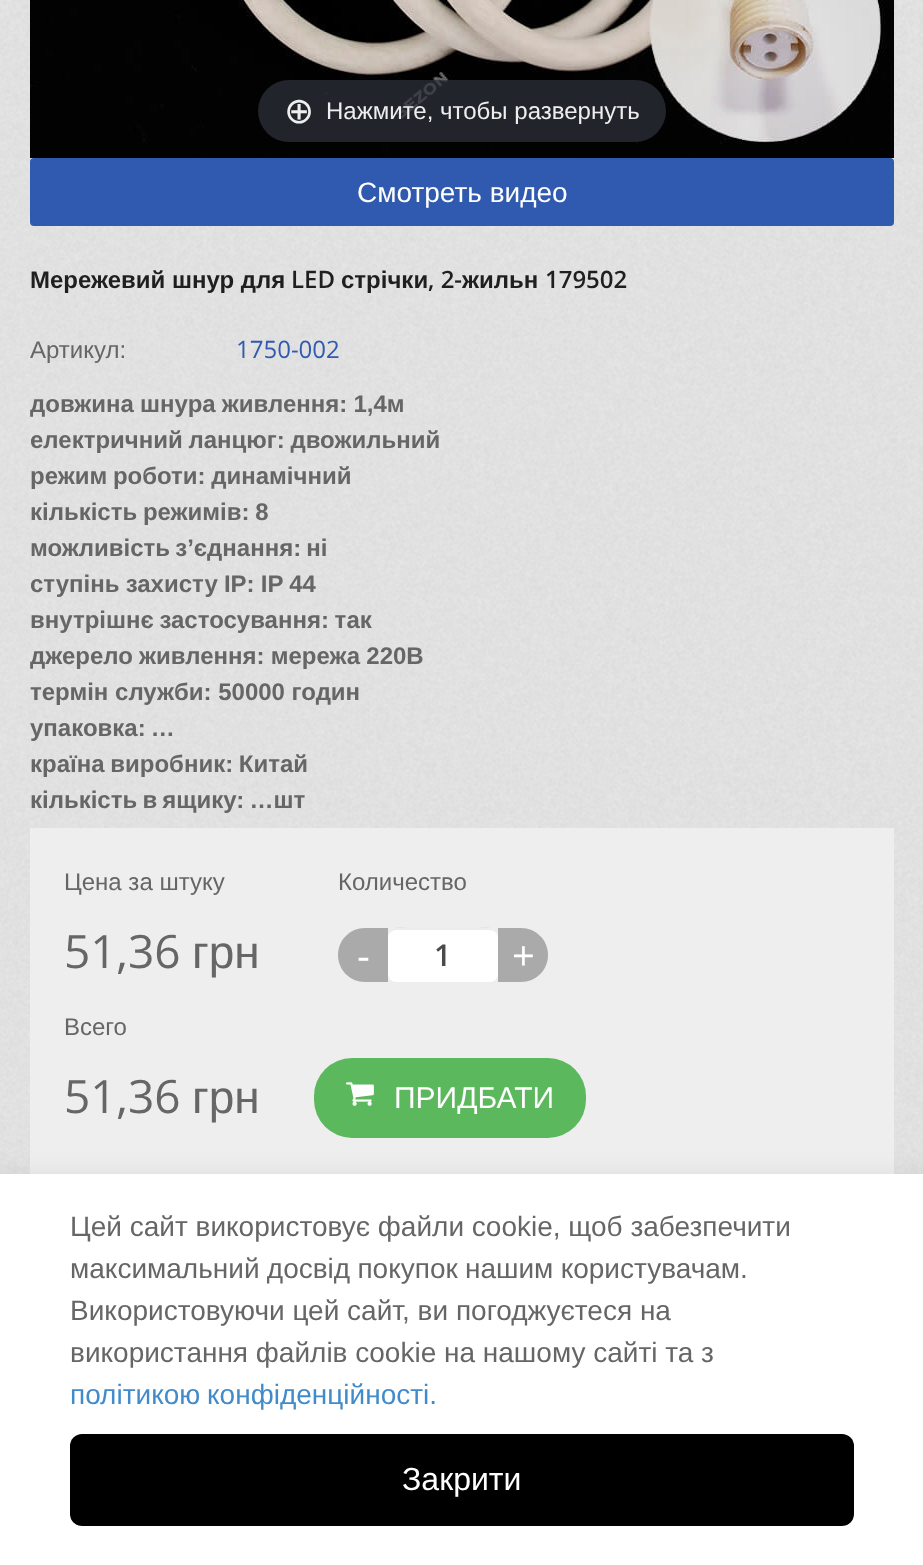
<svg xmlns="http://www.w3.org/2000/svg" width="923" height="1565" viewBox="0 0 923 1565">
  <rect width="100%" height="100%" fill="#fff"/>
  <image x="0" y="0" width="923" height="1174" href="img/1.png"/>
  <image x="30" y="0" width="864" height="158" href="img/2.png"/>
  <rect x="258" y="80" width="408" height="62" rx="31" fill="#31333db3"/>
  <rect x="30" y="158" width="864" height="68" rx="4" fill="#305aaf"/>
  <path d="M30 828h864v346H30z" fill="#eee"/>
  <path d="M365 928H388V982H365C350 982 338 970 338 955C338 940 350 928 365 928Z" fill="#aaa"/>
  <rect x="388" y="928" width="110" height="54" rx="8" fill="#fff"/>
  <path d="M396 930H490C494 930 498 934 498 938C498 924 485 928 474 928H412C401 928 388 924 388 938C388 934 392 930 396 930Z" fill="#00000012"/>
  <path d="M498 928H521C536 928 548 940 548 955C548 970 536 982 521 982H498Z" fill="#aaa"/>
  <rect x="314" y="1058" width="272" height="80" rx="38" fill="#5cb85c"/>
  <image x="346" y="1082" width="28" height="24" href="img/3.png"/>
  <path d="M-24 1176h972v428H-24z" fill="#00000014" filter="blur(13px)"/>
  <path d="M0 1174h923v391H0z" fill="#fff"/>
  <rect x="70" y="1434" width="784" height="92" rx="12" fill="#000"/>
  <text x="284" y="123" font-family="DejaVu Sans" font-size="36" fill="#eee">⊕</text>
  <text x="326" y="119" font-family="Liberation Sans" font-size="24" fill="#eee">Нажмите, чтобы развернуть</text>
  <text x="357" y="202" font-family="Liberation Sans" font-size="28" fill="#fff">Смотреть видео</text>
  <text x="30" y="288" font-family="Liberation Sans" font-size="24" font-weight="bold" fill="#1f1f1f">Мережевий шнур для</text>
  <text x="291" y="288" font-family="Open Sans" font-size="24" font-weight="600" fill="#1f1f1f">LED</text>
  <text x="341" y="288" font-family="Liberation Sans" font-size="24" font-weight="bold" fill="#1f1f1f">стрічки</text>
  <text x="428" y="288" font-family="Open Sans" font-size="24" font-weight="600" fill="#1f1f1f">, 2-</text>
  <text x="462" y="288" font-family="Liberation Sans" font-size="24" font-weight="bold" fill="#1f1f1f">жильн</text>
  <text x="545" y="288" font-family="Open Sans" font-size="24" font-weight="600" fill="#1f1f1f">179502</text>
  <text x="30" y="358" font-family="Liberation Sans" font-size="24" fill="#666">Артикул:</text>
  <text x="236" y="358" font-family="Open Sans" font-size="24" fill="#305aaf">1750-002</text>
  <g font-family="Liberation Sans" font-size="24" font-weight="bold" fill="#666">
    <text x="30" y="412" word-spacing="-0.5">довжина шнура живлення: 1,4м</text>
    <text x="30" y="448" word-spacing="-1">електричний ланцюг: двожильний</text>
    <text x="30" y="484" word-spacing="-1">режим роботи: динамічний</text>
    <text x="30" y="520" word-spacing="-1">кількість режимів: 8</text>
    <text x="30" y="556" word-spacing="-1.5">можливість з’єднання: ні</text>
    <text x="30" y="592" word-spacing="-0.5">ступінь захисту IP: IP 44</text>
    <text x="30" y="628" word-spacing="-1">внутрішнє застосування: так</text>
    <text x="30" y="664" word-spacing="-0.5">джерело живлення: мережа 220В</text>
    <text x="30" y="700">термін служби: 50000 годин</text>
    <text x="30" y="736" word-spacing="-1.5">упаковка: …</text>
    <text x="30" y="772" word-spacing="-1">країна виробник: Китай</text>
    <text x="30" y="808" word-spacing="-1.5">кількість в ящику: …шт</text>
  </g>
  <text x="64" y="890" font-family="Liberation Sans" font-size="24" fill="#666">Цена за штуку</text>
  <text x="64" y="968" font-family="Open Sans" font-size="46" fill="#666">51,36</text>
  <text x="192" y="968" font-family="Liberation Sans" font-size="46" fill="#666">грн</text>
  <text x="338" y="890" font-family="Liberation Sans" font-size="24" fill="#666">Количество</text>
  <text x="357" y="970" font-family="Open Sans" font-size="40" fill="#fff">-</text>
  <text x="434" y="966" font-family="Open Sans" font-size="30" font-weight="600" fill="#4a4a4a">1</text>
  <text x="512" y="970" font-family="Open Sans" font-size="40" fill="#fff">+</text>
  <text x="64" y="1035" font-family="Liberation Sans" font-size="24" fill="#666">Всего</text>
  <text x="64" y="1113" font-family="Open Sans" font-size="46" fill="#666">51,36</text>
  <text x="192" y="1113" font-family="Liberation Sans" font-size="46" fill="#666">грн</text>
  <text x="394" y="1108" font-family="Liberation Sans" font-size="30" fill="#fff">ПРИДБАТИ</text>
  <g font-family="Liberation Sans" font-size="28" fill="#666">
    <text x="70" y="1236">Цей сайт використовує файли cookie, щоб забезпечити</text>
    <text x="70" y="1278" word-spacing="-0.5">максимальний досвід покупок нашим користувачам.</text>
    <text x="70" y="1320">Використовуючи цей сайт, ви погоджуєтеся на</text>
    <text x="70" y="1362">використання файлів cookie на нашому сайті та з</text>
  </g>
  <text x="70" y="1404" word-spacing="-1" font-family="Liberation Sans" font-size="28" fill="#428bca">політикою конфіденційності.</text>
  <text x="402" y="1490" font-family="Liberation Sans" font-size="32" fill="#fff">Закрити</text>
</svg>
